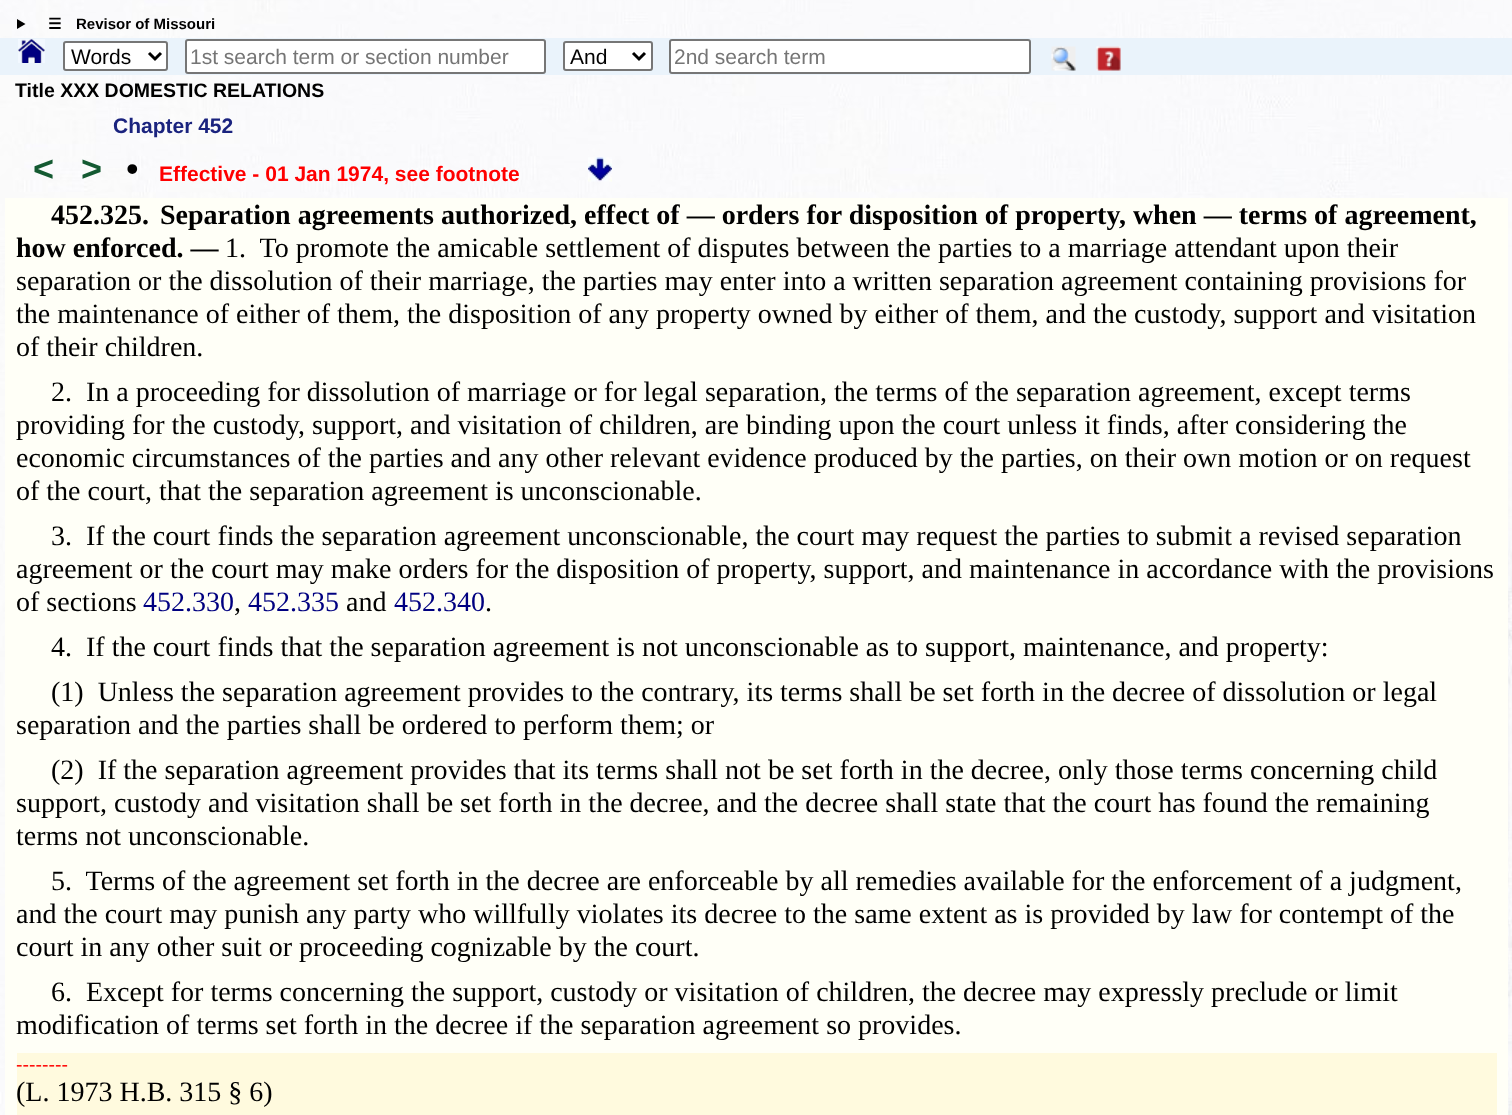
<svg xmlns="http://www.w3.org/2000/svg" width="1512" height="1115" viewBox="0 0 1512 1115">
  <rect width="100%" height="100%" fill="#fff"/>
  <image x="0" y="0" width="1512" height="1115" href="img/1.png"/>
  <path d="M17 19L25.5 24L17 29Z" fill="#000"/>
  <path d="M0 38h1512v37H0z" fill="#eaf3fb"/>
  <image x="18" y="39" width="27" height="24" href="img/2.png"/>
  <rect x="64" y="42" width="103" height="28" rx="2" fill="#fff" stroke="#767676" stroke-width="2"/>
  <path d="M149 53L155 59L161 53" fill="none" stroke="#000" stroke-width="3"/>
  <rect x="186" y="40" width="359" height="33" rx="2" fill="#fff" stroke="#767676" stroke-width="2"/>
  <rect x="564" y="42" width="88" height="28" rx="2" fill="#fff" stroke="#767676" stroke-width="2"/>
  <path d="M633 53L639 59L645 53" fill="none" stroke="#000" stroke-width="3"/>
  <rect x="670" y="40" width="360" height="33" rx="2" fill="#fff" stroke="#767676" stroke-width="2"/>
  <image x="1051" y="46" width="25" height="25" href="img/3.png"/>
  <image x="1096" y="46" width="25" height="25" href="img/4.png"/>
  <image x="588" y="157" width="24" height="25" href="img/5.png"/>
  <path d="M5 198h1503v917H5z" fill="#fffff7"/>
  <path d="M17 1053h1480v62H17z" fill="#fffade"/>
  <text x="48" y="29" font-family="DejaVu Sans" font-size="15" font-weight="bold" fill="#000">☰</text>
  <text x="76" y="29" font-family="Liberation Sans" font-size="15" font-weight="bold" fill="#000">Revisor of Missouri</text>
  <text x="71" y="64" font-family="Liberation Sans" font-size="21" fill="#000">Words</text>
  <text x="190" y="64" font-family="Liberation Sans" font-size="21" fill="#757575">1st search term or section number</text>
  <text x="570" y="64" font-family="Liberation Sans" font-size="21" fill="#000">And</text>
  <text x="674" y="64" font-family="Liberation Sans" font-size="21" fill="#757575">2nd search term</text>
  <text x="15" y="97" font-family="Liberation Sans" font-size="19.5" font-weight="bold" fill="#000">Title XXX DOMESTIC RELATIONS</text>
  <text x="113" y="133" font-family="Liberation Sans" font-size="21" font-weight="bold" fill="#1a237e">Chapter 452</text>
  <g font-family="Liberation Sans" font-size="36" font-weight="bold" fill="#145a32">
    <text x="33" y="181">&lt;</text>
    <text x="81" y="181">&gt;</text>
  </g>
  <text x="126" y="181" font-family="Liberation Sans" font-size="36" fill="#000">•</text>
  <text x="159" y="181" font-family="Liberation Sans" font-size="21" font-weight="bold" fill="#f00">Effective - 01 Jan 1974, see footnote</text>
  <g font-family="Liberation Serif" font-size="28" font-weight="bold" fill="#000">
    <text x="51" y="224">452.325.</text>
    <text x="160" y="224">Separation agreements authorized, effect of — orders for disposition of property, when — terms of agreement,</text>
    <text x="16" y="257">how enforced. —</text>
  </g>
  <g font-family="Liberation Serif" font-size="28" fill="#000">
    <text x="225" y="257" xml:space="preserve">1.  To promote the amicable settlement of disputes between the parties to a marriage attendant upon their</text>
    <text x="16" y="290">separation or the dissolution of their marriage, the parties may enter into a written separation agreement containing provisions for</text>
    <text x="16" y="323">the maintenance of either of them, the disposition of any property owned by either of them, and the custody, support and visitation</text>
    <text x="16" y="356">of their children.</text>
    <text x="51" y="401" xml:space="preserve">2.  In a proceeding for dissolution of marriage or for legal separation, the terms of the separation agreement, except terms</text>
    <text x="16" y="434">providing for the custody, support, and visitation of children, are binding upon the court unless it finds, after considering the</text>
    <text x="16" y="467">economic circumstances of the parties and any other relevant evidence produced by the parties, on their own motion or on request</text>
    <text x="16" y="500">of the court, that the separation agreement is unconscionable.</text>
    <text x="51" y="545" xml:space="preserve">3.  If the court finds the separation agreement unconscionable, the court may request the parties to submit a revised separation</text>
    <text x="16" y="578">agreement or the court may make orders for the disposition of property, support, and maintenance in accordance with the provisions</text>
    <text x="16" y="611">of sections</text>
  </g>
  <text x="143" y="611" font-family="Liberation Serif" font-size="28" fill="#000080">452.330</text>
  <text x="234" y="611" font-family="Liberation Serif" font-size="28" fill="#000">,</text>
  <text x="248" y="611" font-family="Liberation Serif" font-size="28" fill="#000080">452.335</text>
  <text x="346" y="611" font-family="Liberation Serif" font-size="28" fill="#000">and</text>
  <text x="394" y="611" font-family="Liberation Serif" font-size="28" fill="#000080">452.340</text>
  <g font-family="Liberation Serif" font-size="28" fill="#000">
    <text x="485" y="611">.</text>
    <text x="51" y="656" xml:space="preserve">4.  If the court finds that the separation agreement is not unconscionable as to support, maintenance, and property:</text>
    <text x="51" y="701" xml:space="preserve">(1)  Unless the separation agreement provides to the contrary, its terms shall be set forth in the decree of dissolution or legal</text>
    <text x="16" y="734">separation and the parties shall be ordered to perform them; or</text>
    <text x="51" y="779" xml:space="preserve">(2)  If the separation agreement provides that its terms shall not be set forth in the decree, only those terms concerning child</text>
    <text x="16" y="812">support, custody and visitation shall be set forth in the decree, and the decree shall state that the court has found the remaining</text>
    <text x="16" y="845">terms not unconscionable.</text>
    <text x="51" y="890" xml:space="preserve">5.  Terms of the agreement set forth in the decree are enforceable by all remedies available for the enforcement of a judgment,</text>
    <text x="16" y="923">and the court may punish any party who willfully violates its decree to the same extent as is provided by law for contempt of the</text>
    <text x="16" y="956">court in any other suit or proceeding cognizable by the court.</text>
    <text x="51" y="1001" xml:space="preserve">6.  Except for terms concerning the support, custody or visitation of children, the decree may expressly preclude or limit</text>
    <text x="16" y="1034">modification of terms set forth in the decree if the separation agreement so provides.</text>
  </g>
  <text x="16" y="1071" font-family="Liberation Sans" font-size="19.5" fill="#f00">--------</text>
  <text x="16" y="1101" font-family="Liberation Serif" font-size="28" fill="#000">(L. 1973 H.B. 315 § 6)</text>
</svg>
